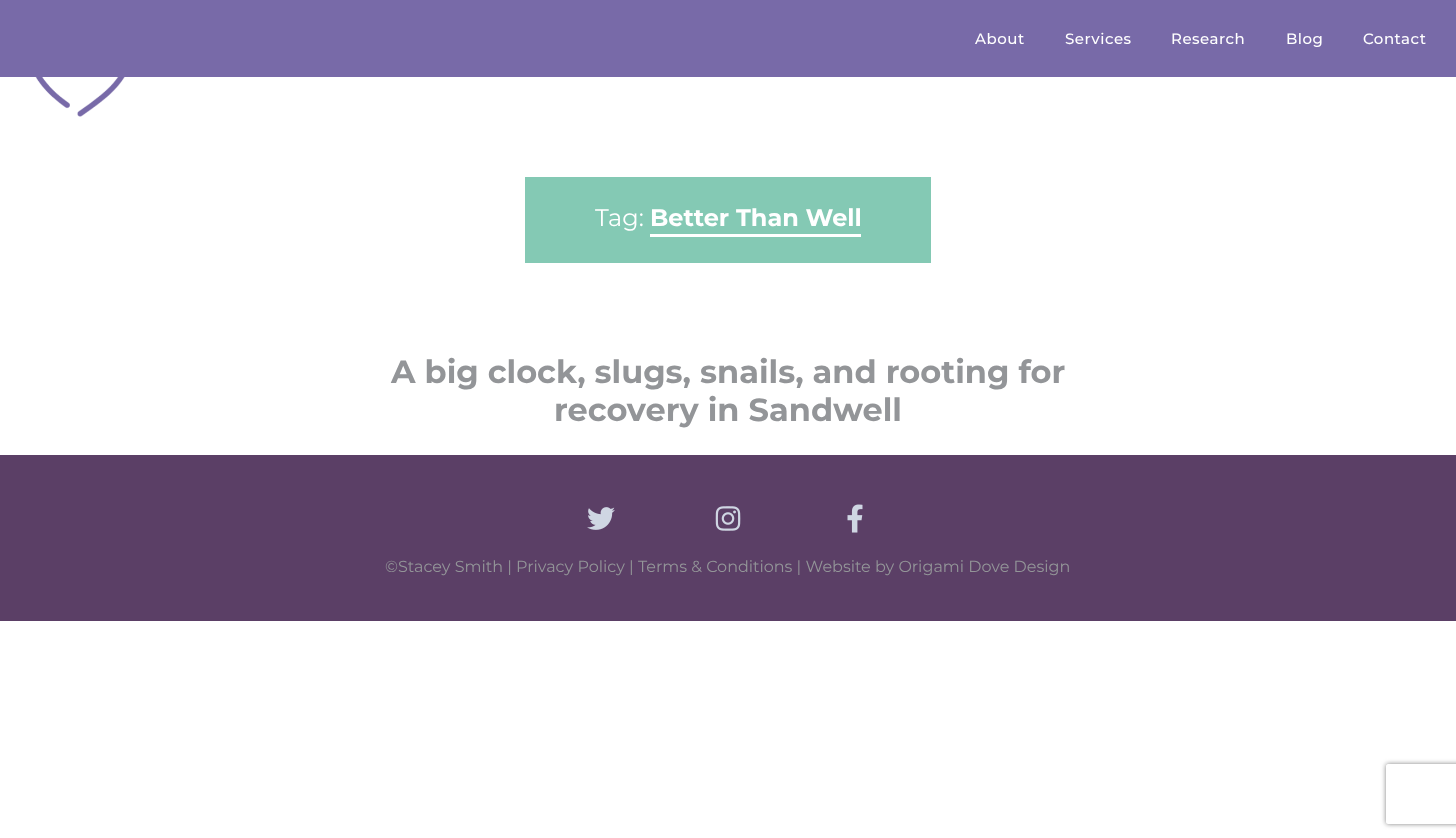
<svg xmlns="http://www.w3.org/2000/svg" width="1456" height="838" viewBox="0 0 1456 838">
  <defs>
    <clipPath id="clip1"><path d="M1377 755H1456V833H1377ZM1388 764H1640C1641 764 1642 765 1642 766V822C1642 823 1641 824 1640 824H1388C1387 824 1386 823 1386 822V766C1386 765 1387 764 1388 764Z" clip-rule="evenodd"/></clipPath>
  </defs>
  <rect width="100%" height="100%" fill="#fff"/>
  <path d="M0 0h1456v77H0z" fill="#786aa8"/>
  <image x="35" y="77" width="90" height="40" href="img/1.png"/>
  <path d="M525 177h406v86H525z" fill="#84c9b4"/>
  <path d="M650 234h211v3H650z" fill="#fff"/>
  <path d="M0 455h1456v166H0z" fill="#5b3f66"/>
  <image x="587" y="507" width="28" height="23" href="img/2.png"/>
  <image x="715" y="506" width="26" height="25" href="img/3.png"/>
  <image x="847" y="504" width="16" height="29" href="img/4.png"/>
  <g clip-path="url(#clip1)">
    <rect x="1386" y="764" width="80" height="60" rx="2" fill="#808080" filter="blur(2.5px)"/>
  </g>
  <g font-family="Montserrat" font-size="15" font-weight="500" letter-spacing="0.5" fill="#fff">
    <text x="975" y="44">About</text>
    <text x="1065" y="44">Services</text>
    <text x="1171" y="44">Research</text>
    <text x="1286" y="44">Blog</text>
    <text x="1363" y="44">Contact</text>
  </g>
  <text x="595" y="226" font-family="Montserrat" font-size="24" fill="#fff">Tag:</text>
  <text x="650" y="226" font-family="Montserrat" font-size="24" font-weight="bold" fill="#fff">Better Than Well</text>
  <g font-family="Montserrat" font-size="32" font-weight="bold" fill="#939598">
    <text x="391" y="383">A big clock, slugs, snails, and rooting for</text>
    <text x="554" y="421">recovery in Sandwell</text>
  </g>
  <text x="385" y="572" font-family="Montserrat" font-size="16" fill="#939598">©Stacey Smith | Privacy Policy | Terms &amp; Conditions | Website by Origami Dove Design</text>
</svg>
